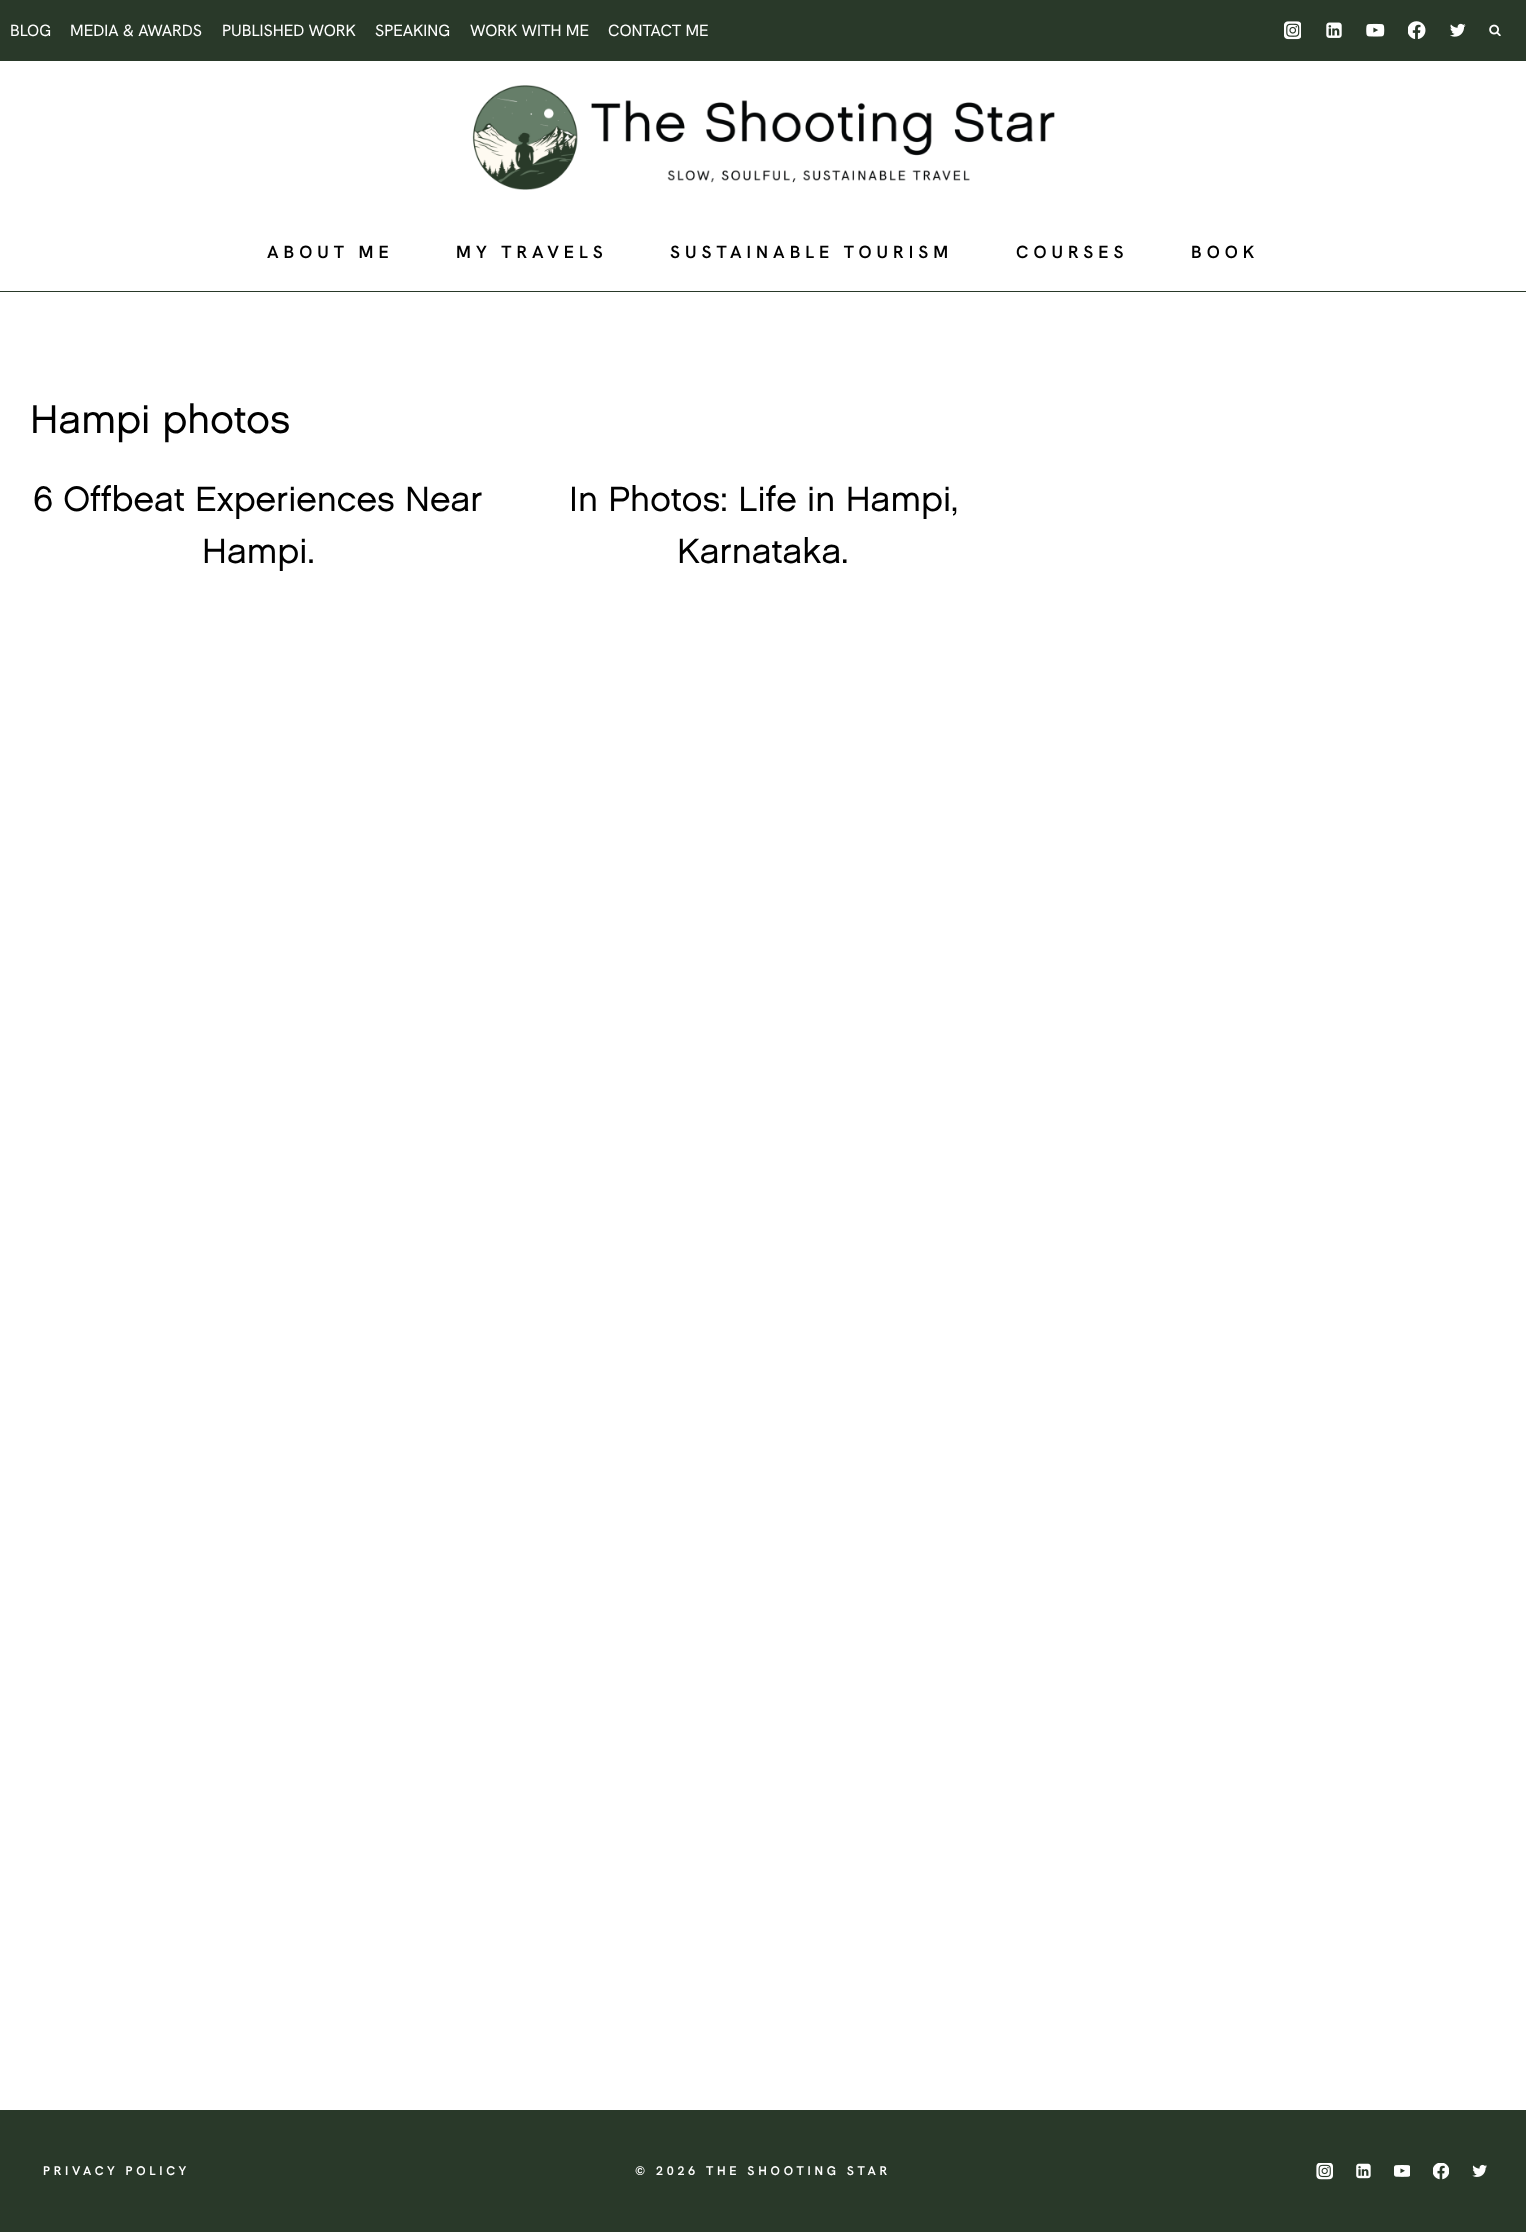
<svg xmlns="http://www.w3.org/2000/svg" width="1526" height="2232" viewBox="0 0 1526 2232">
  <rect width="100%" height="100%" fill="#fff"/>
  <path d="M0 0h1526v61H0z" fill="#293929"/>
  <image x="1284" y="21" width="17" height="19" href="img/1.png"/>
  <image x="1326" y="22" width="16" height="16" href="img/2.png"/>
  <image x="1366" y="23" width="19" height="14" href="img/3.png"/>
  <image x="1408" y="21" width="18" height="18" href="img/4.png"/>
  <image x="1450" y="23" width="16" height="14" href="img/5.png"/>
  <image x="1489" y="24" width="12" height="12" href="img/6.png"/>
  <image x="472" y="85" width="583" height="105" href="img/7.png"/>
  <path d="M0 291h1526v1H0z" fill="#293929"/>
  <path d="M0 2110h1526v122H0z" fill="#293929"/>
  <image x="1316" y="2163" width="17" height="17" href="img/8.png"/>
  <image x="1356" y="2163" width="15" height="16" href="img/9.png"/>
  <image x="1394" y="2165" width="16" height="12" href="img/10.png"/>
  <image x="1433" y="2163" width="16" height="17" href="img/11.png"/>
  <image x="1472" y="2164" width="15" height="13" href="img/12.png"/>
  <g font-family="Hanken Grotesk" font-size="16.25" fill="#fff">
    <text x="10" y="36">BLOG</text>
    <text x="70" y="36">MEDIA &amp; AWARDS</text>
    <text x="222" y="36">PUBLISHED WORK</text>
    <text x="375" y="36">SPEAKING</text>
    <text x="470" y="36">WORK WITH ME</text>
    <text x="608" y="36">CONTACT ME</text>
  </g>
  <g font-family="Hanken Grotesk" font-size="17.5" font-weight="600" letter-spacing="5" fill="#000">
    <text x="267" y="258">ABOUT ME</text>
    <text x="456" y="258">MY TRAVELS</text>
    <text x="670" y="258">SUSTAINABLE TOURISM</text>
    <text x="1016" y="258">COURSES</text>
    <text x="1191" y="258">BOOK</text>
  </g>
  <text x="30" y="433" font-family="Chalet" font-size="40" font-weight="500" fill="#000">Hampi photos</text>
  <g font-family="Chalet" font-size="35" font-weight="500" fill="#000">
    <text x="33" y="511">6 Offbeat Experiences Near</text>
    <text x="202" y="563">Hampi.</text>
    <text x="569" y="511">In Photos: Life in Hampi,</text>
    <text x="677" y="563">Karnataka.</text>
  </g>
  <g font-family="Hanken Grotesk" font-size="12.5" font-weight="600" letter-spacing="3.75" fill="#fff">
    <text x="43" y="2175">PRIVACY POLICY</text>
    <text x="635" y="2175">© 2026 THE SHOOTING STAR</text>
  </g>
</svg>
